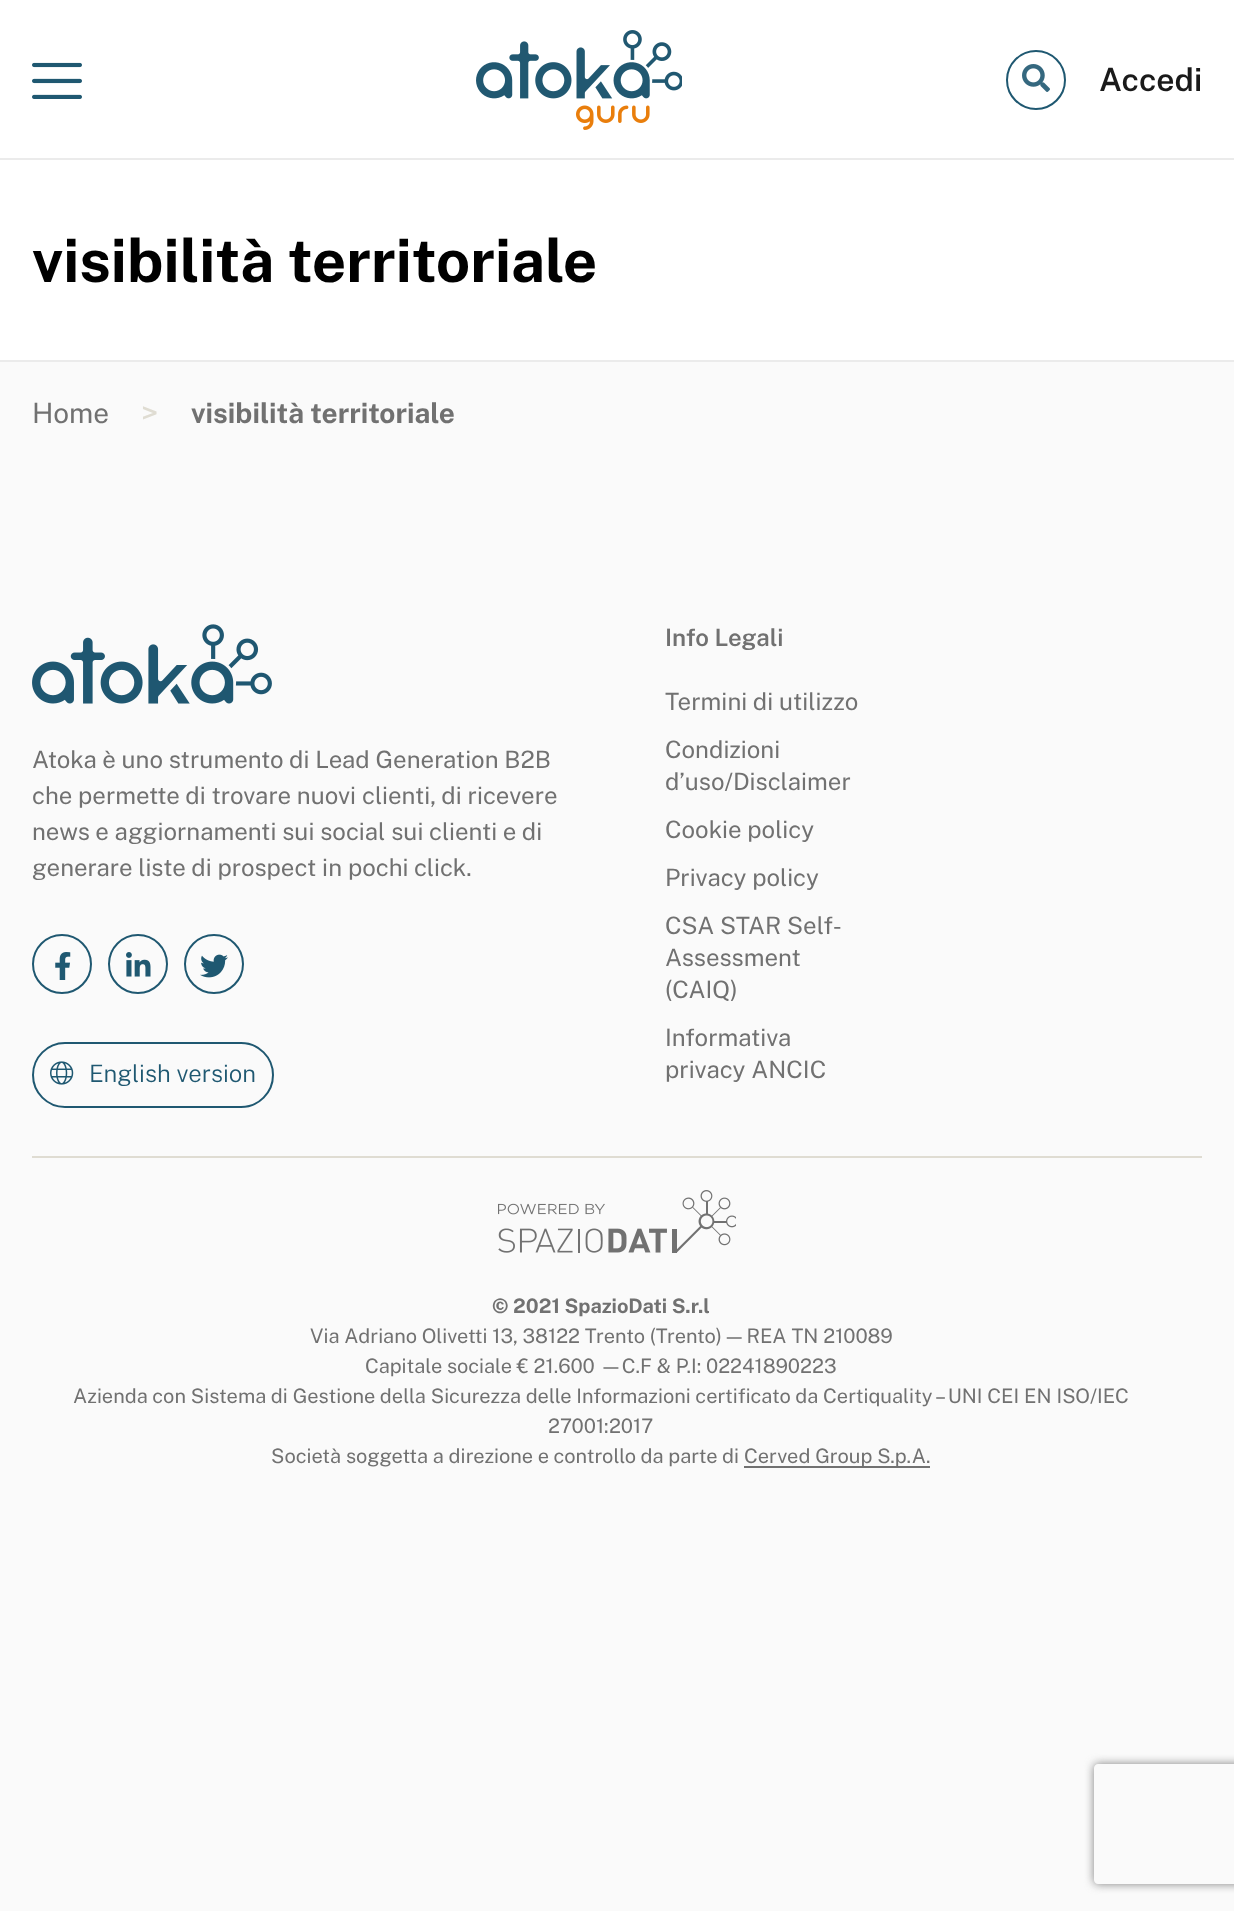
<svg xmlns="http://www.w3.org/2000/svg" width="1234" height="1911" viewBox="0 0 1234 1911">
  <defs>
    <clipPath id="clip1"><path d="M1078 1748H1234V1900H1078ZM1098 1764H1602C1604 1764 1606 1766 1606 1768V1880C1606 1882 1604 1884 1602 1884H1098C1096 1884 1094 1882 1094 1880V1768C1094 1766 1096 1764 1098 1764Z" clip-rule="evenodd"/></clipPath>
  </defs>
  <rect width="100%" height="100%" fill="#fafafa"/>
  <path d="M0 0h1234v158H0z" fill="#fff"/>
  <path d="M0 158h1234v2H0z" fill="#ebebeb"/>
  <image x="32" y="62" width="50" height="37" href="img/1.png"/>
  <image x="476" y="30" width="206" height="100" href="img/2.png"/>
  <circle cx="1036" cy="80" r="29" fill="none" stroke="#1f5871" stroke-width="2"/>
  <image x="1022" y="64" width="28" height="28" href="img/3.png"/>
  <path d="M0 160h1234v200H0z" fill="#fff"/>
  <path d="M0 360h1234v2H0z" fill="#ebebeb"/>
  <image x="32" y="624" width="240" height="80" href="img/4.png"/>
  <circle cx="62" cy="964" r="29" fill="none" stroke="#1f5871" stroke-width="2"/>
  <image x="55" y="952" width="16" height="28" href="img/5.png"/>
  <circle cx="138" cy="964" r="29" fill="none" stroke="#1f5871" stroke-width="2"/>
  <image x="126" y="952" width="25" height="25" href="img/6.png"/>
  <circle cx="214" cy="964" r="29" fill="none" stroke="#1f5871" stroke-width="2"/>
  <image x="200" y="954" width="28" height="24" href="img/7.png"/>
  <rect x="33" y="1043" width="240" height="64" rx="32" fill="none" stroke="#1f5871" stroke-width="2"/>
  <image x="50" y="1061" width="24" height="24" href="img/8.png"/>
  <path d="M32 1156h1170v2H32z" fill="#dfdcd2"/>
  <image x="498" y="1190" width="238" height="63" href="img/9.png"/>
  <path d="M744 1466h186v2H744z" fill="#717171"/>
  <g clip-path="url(#clip1)">
    <rect x="1094" y="1764" width="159" height="120" rx="4" fill="#808080" filter="blur(5px)"/>
  </g>
  <text x="1099" y="91" font-family="Public Sans" font-size="32" font-weight="600" fill="#1a1a1a">Accedi</text>
  <text x="32" y="282" font-family="Public Sans" font-size="60" font-weight="bold" fill="#000">visibilità territoriale</text>
  <text x="32" y="423" font-family="Public Sans" font-size="28" fill="#717171">Home</text>
  <text x="141" y="424" font-family="Public Sans" font-size="32" fill="#dfdcd2">&gt;</text>
  <text x="191" y="423" font-family="Public Sans" font-size="28" font-weight="bold" fill="#717171">visibilità territoriale</text>
  <g font-family="Public Sans" font-size="24" fill="#717171">
    <text x="32" y="768">Atoka è uno strumento</text>
    <text x="289" y="768">di Lead Generation B2B</text>
    <text x="32" y="804">che permette di trovare nuovi</text>
    <text x="362" y="804">clienti, di ricevere</text>
    <text x="32" y="840">news e aggiornamenti sui social sui</text>
    <text x="429" y="840">clienti e di</text>
    <text x="32" y="876">generare liste di prospect in pochi click.</text>
  </g>
  <text x="89" y="1082" font-family="Public Sans" font-size="24" font-weight="300" fill="#1f5871">English version</text>
  <text x="665" y="646" font-family="Public Sans" font-size="24" font-weight="600" fill="#717171">Info Legali</text>
  <g font-family="Public Sans" font-size="24" fill="#717171">
    <text x="665" y="710">Termini di utilizzo</text>
    <text x="665" y="758">Condizioni</text>
    <text x="665" y="790">d’uso/Disclaimer</text>
    <text x="665" y="838">Cookie policy</text>
    <text x="665" y="886">Privacy policy</text>
    <text x="665" y="934">CSA STAR Self-</text>
    <text x="665" y="966">Assessment</text>
    <text x="665" y="998">(CAIQ)</text>
    <text x="665" y="1046">Informativa</text>
    <text x="665" y="1078">privacy ANCIC</text>
  </g>
  <text x="492" y="1313" font-family="Public Sans" font-size="20" font-weight="bold" fill="#717171">© 2021 SpazioDati S.r.l</text>
  <g font-family="Public Sans" font-size="20" fill="#717171">
    <text x="310" y="1343">Via Adriano Olivetti 13, 38122 Trento (Trento) — REA TN 210089</text>
    <text x="365" y="1373">Capitale sociale € 21.600 —C.F &amp; P.I: 02241890223</text>
    <text x="73" y="1403">Azienda con Sistema di Gestione della Sicurezza delle Informazioni certificato da Certiquality – UNI CEI EN ISO/IEC</text>
    <text x="548" y="1433">27001:2017</text>
    <text x="271" y="1463">Società soggetta a direzione e controllo da parte di</text>
    <text x="744" y="1463">Cerved Group S.p.A.</text>
  </g>
</svg>
